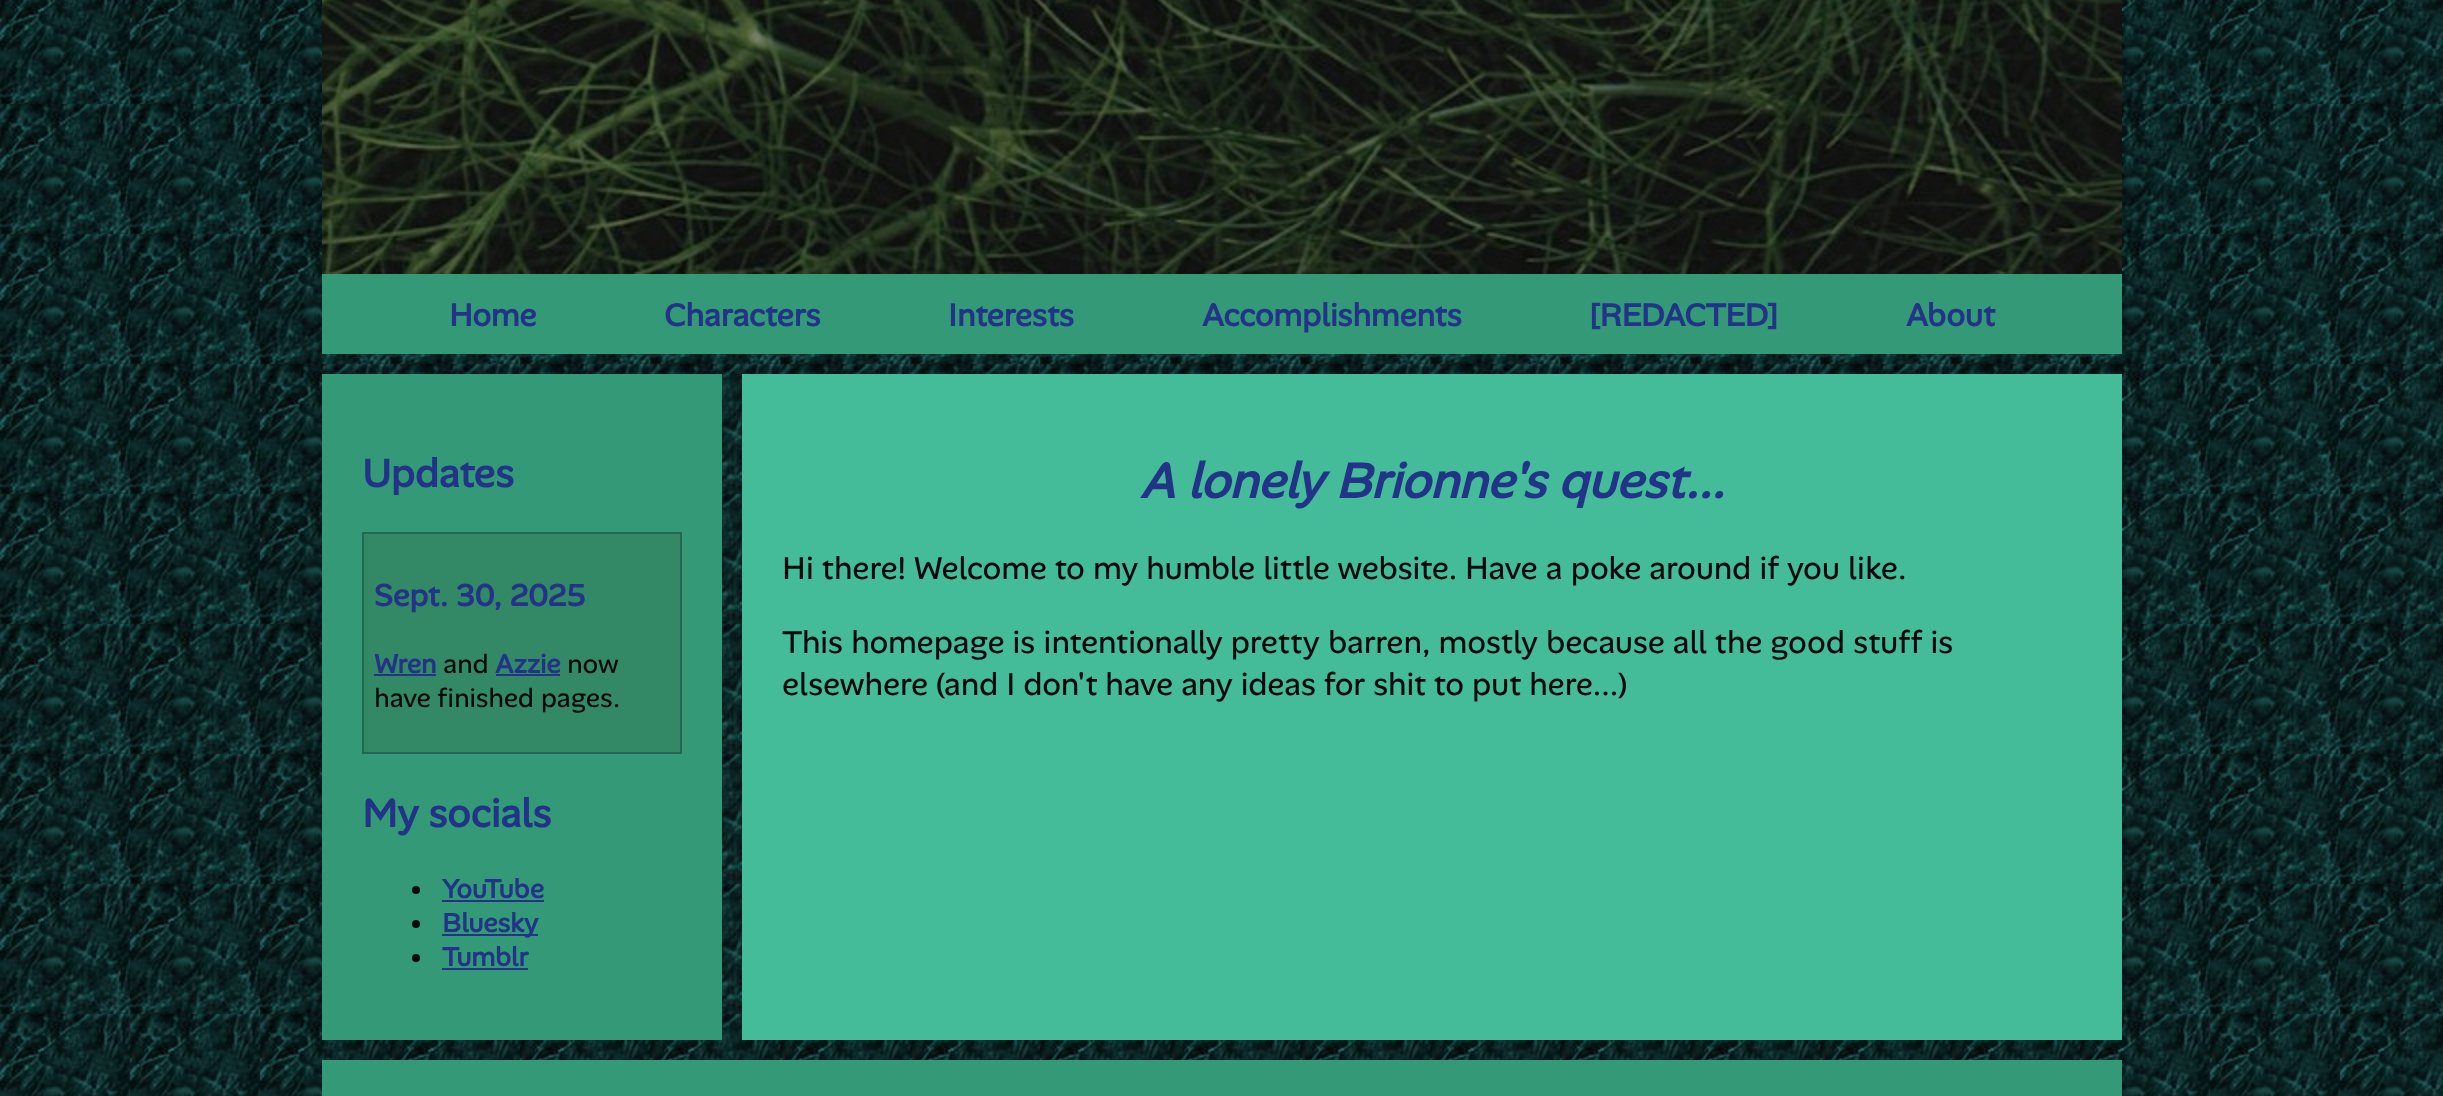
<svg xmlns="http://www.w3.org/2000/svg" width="2443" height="1096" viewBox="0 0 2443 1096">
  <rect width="100%" height="100%" fill="#fff"/>
  <image x="0" y="0" width="2443" height="1096" href="img/1.png"/>
  <image x="322" y="0" width="1800" height="274" href="img/2.png"/>
  <path d="M322 274h1800v80H322z" fill="#397"/>
  <path d="M322 374h400v666H322z" fill="#397"/>
  <path d="M363 533h318v220H363z" fill="#386" stroke="#265" stroke-width="2"/>
  <path d="M374 674h62v2H374z" fill="#238"/>
  <path d="M496 674h64v2H496z" fill="#238"/>
  <circle cx="416" cy="890" r="4" fill="#0a0a0a"/>
  <path d="M442 900h102v2H442z" fill="#238"/>
  <circle cx="416" cy="924" r="4" fill="#0a0a0a"/>
  <path d="M442 934h96v2H442z" fill="#238"/>
  <circle cx="416" cy="958" r="4" fill="#0a0a0a"/>
  <path d="M442 968h86v2H442z" fill="#238"/>
  <path d="M742 374h1380v666H742z" fill="#4b9"/>
  <path d="M322 1060h1800v36H322z" fill="#397"/>
  <g font-family="Alan Sans" font-size="32" font-weight="bold" fill="#238">
    <text x="449" y="326">Home</text>
    <text x="664" y="326">Characters</text>
    <text x="948" y="326">Interests</text>
    <text x="1202" y="326">Accomplishments</text>
    <text x="1589" y="326">[REDACTED]</text>
    <text x="1906" y="326">About</text>
  </g>
  <text x="362" y="487" font-family="Alan Sans" font-size="40" font-weight="bold" fill="#238">Updates</text>
  <text x="374" y="606" font-family="Alan Sans" font-size="31.25" font-weight="bold" fill="#238">Sept. 30, 2025</text>
  <text x="374" y="673" font-family="Alan Sans" font-size="26.75" font-weight="bold" fill="#238">Wren</text>
  <text x="443" y="673" font-family="Alan Sans" font-size="26.75" font-weight="300" fill="#0a0a0a">and</text>
  <text x="495" y="673" font-family="Alan Sans" font-size="26.75" font-weight="bold" fill="#238">Azzie</text>
  <g font-family="Alan Sans" font-size="26.75" font-weight="300" fill="#0a0a0a">
    <text x="567" y="673">now</text>
    <text x="374" y="707">have finished pages.</text>
  </g>
  <text x="362" y="827" font-family="Alan Sans" font-size="40" font-weight="bold" fill="#238">My socials</text>
  <g font-family="Alan Sans" font-size="26.75" font-weight="bold" fill="#238">
    <text x="442" y="898">YouTube</text>
    <text x="442" y="932">Bluesky</text>
    <text x="442" y="966">Tumblr</text>
  </g>
  <text x="1140" y="498" font-family="Alan Sans" font-size="50" font-weight="bold" font-style="italic" fill="#238">A lonely Brionne's quest...</text>
  <g font-family="Alan Sans" font-size="32" font-weight="300" fill="#0a0a0a">
    <text x="782" y="579">Hi there! Welcome to my humble little website. Have a poke around if you like.</text>
    <text x="782" y="653">This homepage is intentionally pretty barren, mostly because all the good stuff is</text>
    <text x="782" y="695">elsewhere (and I don't have any ideas for shit to put here...)</text>
  </g>
</svg>
